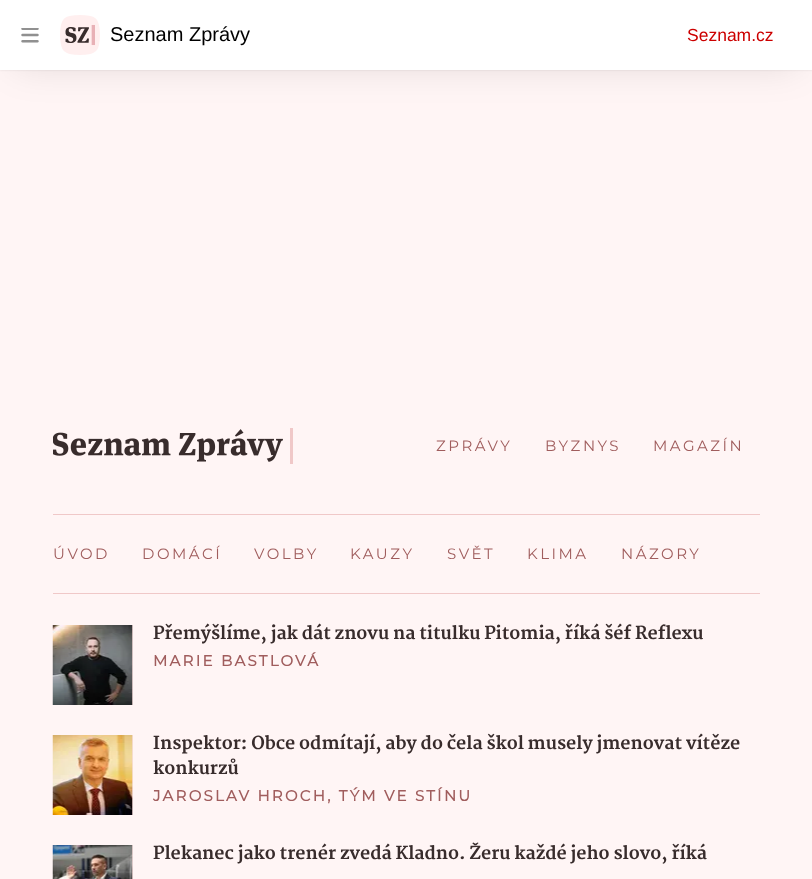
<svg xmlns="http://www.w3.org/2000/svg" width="812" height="879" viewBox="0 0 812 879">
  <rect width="100%" height="100%" fill="#fff5f5"/>
  <path d="M15 25h783v40H15z" fill="#0000001f" filter="blur(19px)"/>
  <path d="M0 0h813v70H0z" fill="#0000001a" filter="blur(1px)"/>
  <path d="M0 0h812v70H0z" fill="#fff"/>
  <image x="21" y="28" width="18" height="15" href="img/1.png"/>
  <image x="60" y="15" width="40" height="40" href="img/2.png"/>
  <image x="53" y="428" width="240" height="36" href="img/3.png"/>
  <path d="M53 514h707v1H53z" fill="#f0c8c8"/>
  <path d="M53 593h707v1H53z" fill="#f0c8c8"/>
  <path d="M132 625h1v80H132z" fill="#f7dede"/>
  <image x="52" y="625" width="81" height="80" href="img/4.png"/>
  <path d="M132 735h1v80H132z" fill="#f7dede"/>
  <image x="52" y="735" width="81" height="80" href="img/5.png"/>
  <path d="M132 845h1v34H132z" fill="#f7dede"/>
  <image x="52" y="845" width="81" height="34" href="img/6.png"/>
  <text x="110" y="41" font-family="Liberation Sans" font-size="20" fill="#000">Seznam Zprávy</text>
  <text x="687" y="41" font-family="Liberation Sans" font-size="17.5" fill="#c00">Seznam.cz</text>
  <g font-family="Montserrat" font-size="15" letter-spacing="2.5" fill="#a05d5d">
    <text x="436" y="451">ZPRÁVY</text>
    <text x="545" y="451">BYZNYS</text>
    <text x="653" y="451">MAGAZÍN</text>
    <text x="53" y="559">ÚVOD</text>
    <text x="142" y="559">DOMÁCÍ</text>
    <text x="254" y="559">VOLBY</text>
    <text x="350" y="559">KAUZY</text>
    <text x="447" y="559">SVĚT</text>
    <text x="527" y="559">KLIMA</text>
    <text x="621" y="559">NÁZORY</text>
  </g>
  <text x="153" y="639" font-family="Martel" font-size="17.5" font-weight="800" fill="#382c2c">Přemýšlíme, jak dát znovu na titulku Pitomia, říká šéf Reflexu</text>
  <text x="153" y="666" font-family="Montserrat" font-size="15" font-weight="bold" letter-spacing="2.25" fill="#a05d5d">MARIE BASTLOVÁ</text>
  <g font-family="Martel" font-size="17.5" font-weight="800" fill="#382c2c">
    <text x="153" y="749">Inspektor: Obce odmítají, aby do čela škol musely jmenovat vítěze</text>
    <text x="153" y="774">konkurzů</text>
  </g>
  <text x="153" y="801" font-family="Montserrat" font-size="15" font-weight="bold" letter-spacing="2.25" fill="#a05d5d">JAROSLAV HROCH, TÝM VE STÍNU</text>
  <text x="153" y="859" font-family="Martel" font-size="17.5" font-weight="800" fill="#382c2c">Plekanec jako trenér zvedá Kladno. Žeru každé jeho slovo, říká</text>
</svg>
